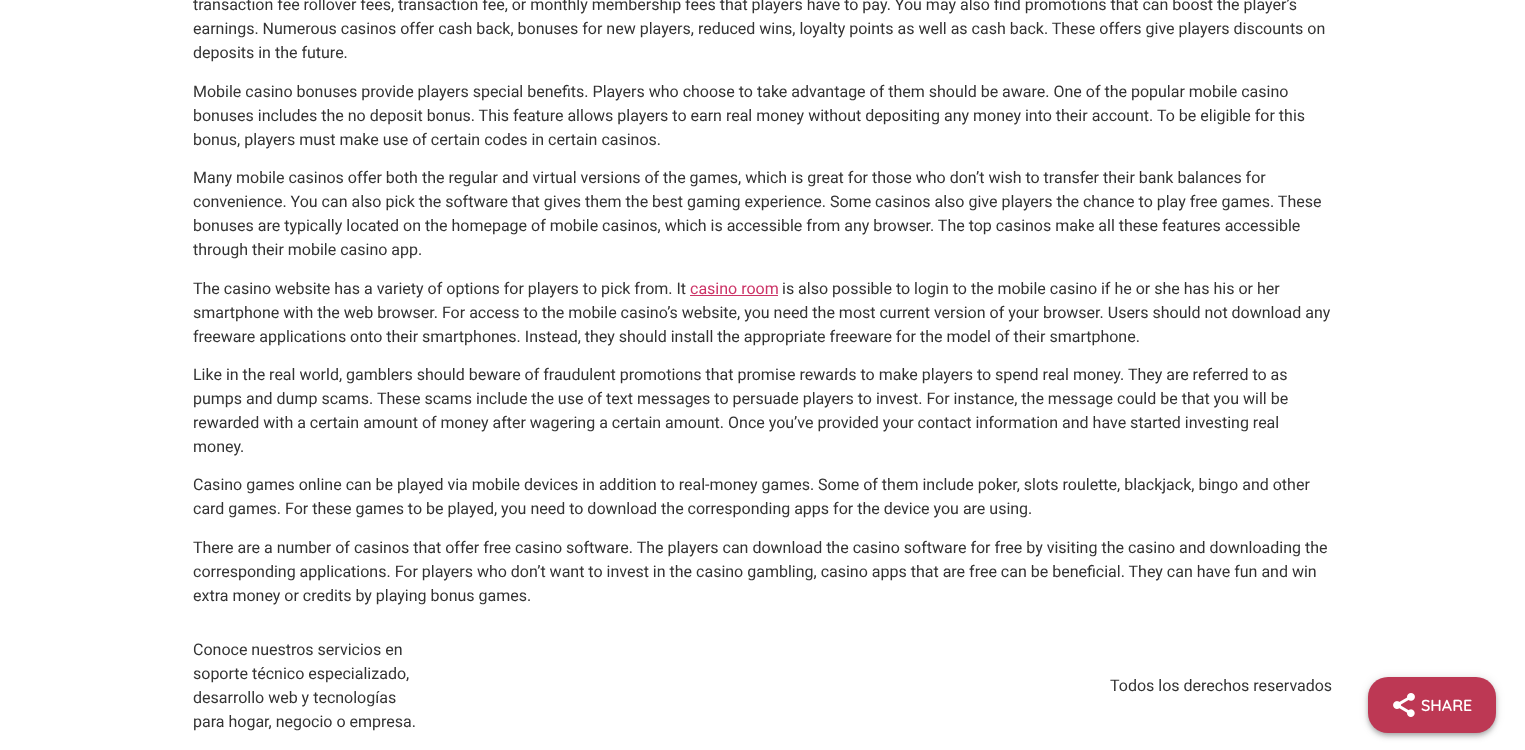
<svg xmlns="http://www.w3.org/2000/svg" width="1525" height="750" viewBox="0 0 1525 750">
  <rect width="100%" height="100%" fill="#fff"/>
  <path d="M690 295h88v1H690z" fill="#c36"/>
  <rect x="1368" y="678" width="128" height="56" rx="20" fill="#0000001f" filter="blur(5px)"/>
  <rect x="1368" y="681" width="128" height="56" rx="20" fill="#00000024" filter="blur(2.5px)"/>
  <rect x="1369" y="680" width="126" height="54" rx="19" fill="#00000033" filter="blur(2px)"/>
  <rect x="1368" y="677" width="128" height="56" rx="20" fill="#bd3854"/>
  <image x="1393" y="693" width="22" height="24" href="img/1.png"/>
  <g font-family="Roboto" font-size="16" fill="#333">
    <text x="193" y="10">transaction fee rollover fees, transaction fee, or monthly membership fees that players have to pay. You may also find promotions that can boost the player’s</text>
    <text x="193" y="34">earnings. Numerous casinos offer cash back, bonuses for new players, reduced wins, loyalty points as well as cash back. These offers give players discounts on</text>
    <text x="193" y="58">deposits in the future.</text>
    <text x="193" y="97">Mobile casino bonuses provide players special benefits. Players who choose to take advantage of them should be aware. One of the popular mobile casino</text>
    <text x="193" y="121">bonuses includes the no deposit bonus. This feature allows players to earn real money without depositing any money into their account. To be eligible for this</text>
    <text x="193" y="145">bonus, players must make use of certain codes in certain casinos.</text>
    <text x="193" y="183">Many mobile casinos offer both the regular and virtual versions of the games, which is great for those who don’t wish to transfer their bank balances for</text>
    <text x="193" y="207">convenience. You can also pick the software that gives them the best gaming experience. Some casinos also give players the chance to play free games. These</text>
    <text x="193" y="231">bonuses are typically located on the homepage of mobile casinos, which is accessible from any browser. The top casinos make all these features accessible</text>
    <text x="193" y="255">through their mobile casino app.</text>
    <text x="193" y="294">The casino website has a variety of options for players to pick from. It</text>
  </g>
  <text x="690" y="294" font-family="Roboto" font-size="16" fill="#c36">casino room</text>
  <g font-family="Roboto" font-size="16" fill="#333">
    <text x="782" y="294">is also possible to login to the mobile casino if he or she has his or her</text>
    <text x="193" y="318">smartphone with the web browser. For access to the mobile casino’s website, you need the most current version of your browser. Users should not download any</text>
    <text x="193" y="342">freeware applications onto their smartphones. Instead, they should install the appropriate freeware for the model of their smartphone.</text>
    <text x="193" y="380">Like in the real world, gamblers should beware of fraudulent promotions that promise rewards to make players to spend real money. They are referred to as</text>
    <text x="193" y="404">pumps and dump scams. These scams include the use of text messages to persuade players to invest. For instance, the message could be that you will be</text>
    <text x="193" y="428">rewarded with a certain amount of money after wagering a certain amount. Once you’ve provided your contact information and have started investing real</text>
    <text x="193" y="452">money.</text>
    <text x="193" y="490">Casino games online can be played via mobile devices in addition to real-money games. Some of them include poker, slots roulette, blackjack, bingo and other</text>
    <text x="193" y="514">card games. For these games to be played, you need to download the corresponding apps for the device you are using.</text>
    <text x="193" y="553">There are a number of casinos that offer free casino software. The players can download the casino software for free by visiting the casino and downloading the</text>
    <text x="193" y="577">corresponding applications. For players who don’t want to invest in the casino gambling, casino apps that are free can be beneficial. They can have fun and win</text>
    <text x="193" y="601">extra money or credits by playing bonus games.</text>
    <text x="193" y="655">Conoce nuestros servicios en</text>
    <text x="193" y="679">soporte técnico especializado,</text>
    <text x="193" y="703">desarrollo web y tecnologías</text>
    <text x="193" y="727">para hogar, negocio o empresa.</text>
    <text x="1110" y="691">Todos los derechos reservados</text>
  </g>
  <text x="1421" y="711" font-family="Quicksand" font-size="16" font-weight="600" fill="#fff">SHARE</text>
</svg>
